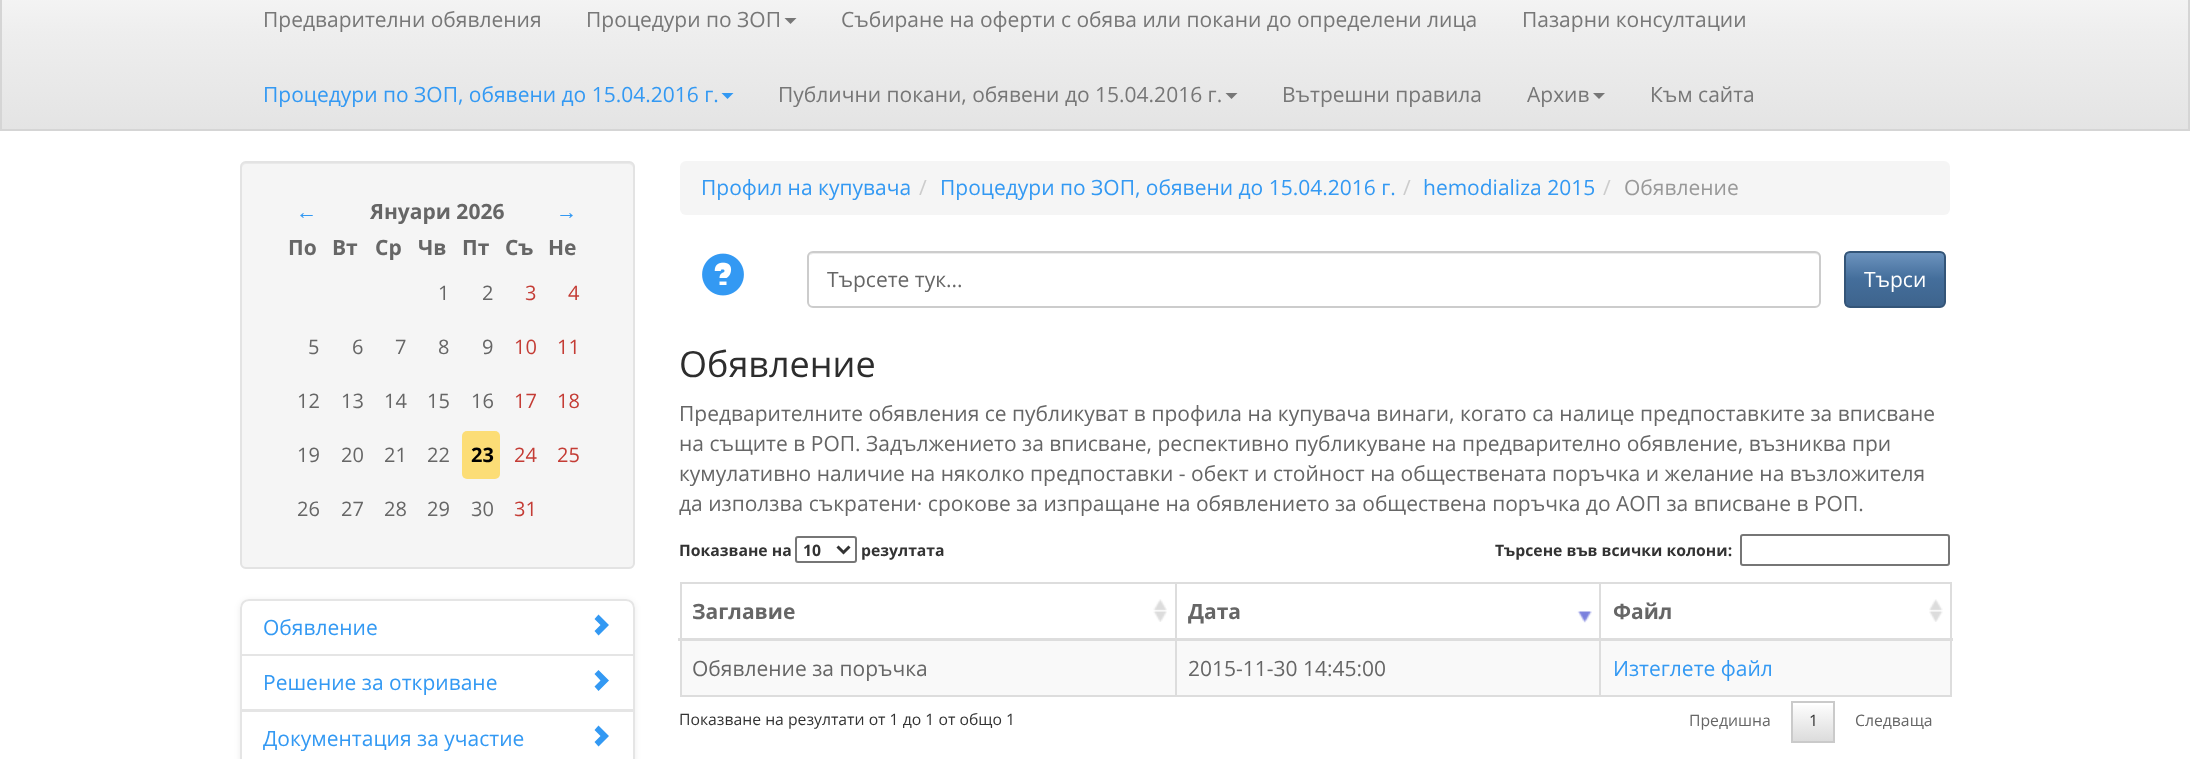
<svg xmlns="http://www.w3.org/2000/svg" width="2190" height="759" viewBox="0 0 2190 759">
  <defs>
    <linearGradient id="g1" gradientUnits="userSpaceOnUse" x1="1095" y1="-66" x2="1095" y2="129"><stop offset="0" stop-color="#fff"/><stop offset="0.5" stop-color="#eee"/><stop offset="1" stop-color="#e4e4e4"/></linearGradient>
    <clipPath id="clip1"><rect x="1844" y="251" width="102" height="57" rx="6"/></clipPath>
    <linearGradient id="g2" gradientUnits="userSpaceOnUse" x1="1895" y1="252" x2="1895" y2="306"><stop offset="0" stop-color="#6d94bf"/><stop offset="0.5" stop-color="#446e9b"/><stop offset="1" stop-color="#3e648d"/></linearGradient>
    <linearGradient id="g3" gradientUnits="userSpaceOnUse" x1="1813" y1="702" x2="1813" y2="741"><stop offset="0" stop-color="#fff"/><stop offset="1" stop-color="#dcdcdc"/></linearGradient>
  </defs>
  <rect width="100%" height="100%" fill="#fff"/>
  <path d="M2 0h2186v129H2z" fill="url(#g1)"/>
  <path d="M1 -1h2188v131H1z" fill="none" stroke="#d5d5d5" stroke-width="2"/>
  <path d="M784.5 18H796.5L790.5 24Z" fill="#777"/>
  <path d="M721.5 93H733.5L727.5 99Z" fill="#3399f3"/>
  <path d="M1225.5 93H1237.5L1231.5 99Z" fill="#777"/>
  <path d="M1593 93H1605L1599 99Z" fill="#777"/>
  <rect x="240" y="161" width="395" height="408" rx="6" fill="#f5f5f5"/>
  <path d="M246 164H628C631 164 633 166 633 168V167C633 164 631 162 628 162H247C244 162 242 164 242 167V168C242 166 244 164 246 164Z" fill="#e9e9e9"/>
  <rect x="241" y="162" width="393" height="406" rx="5" fill="none" stroke="#e3e3e3" stroke-width="2"/>
  <rect x="462" y="431" width="38" height="48" rx="5" fill="#fcdd76"/>
  <rect x="240" y="600" width="395" height="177" rx="9" fill="#00000012" filter="blur(3px)"/>
  <rect x="240" y="599" width="395" height="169" rx="9" fill="#fff"/>
  <path d="M249 600H626C630.5 600 634 603.5 634 608V655H241V608C241 603.5 244.5 600 249 600Z" fill="none" stroke="#e5e5e5" stroke-width="2"/>
  <path d="M594.5 631L600.5 625L594.5 619L598.5 614.5L609 625L598.5 635.5Z" fill="#3399f3"/>
  <path d="M241 655h393v55H241z" fill="none" stroke="#e5e5e5" stroke-width="2"/>
  <path d="M594.5 686.5L600.5 680.5L594.5 674L598.5 670L609 680.5L598.5 691Z" fill="#3399f3"/>
  <path d="M241 711h393v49H241z" fill="none" stroke="#e5e5e5" stroke-width="2"/>
  <path d="M594.5 742L600.5 736L594.5 730L598.5 725.5L609 736L598.5 746.5Z" fill="#3399f3"/>
  <rect x="680" y="161" width="1270" height="54" rx="6" fill="#f5f5f5"/>
  <image x="702" y="253" width="42" height="43" href="img/1.png"/>
  <path d="M813 254H1815C1817 254 1820 256 1820 258V257C1820 254 1818 252 1815 252H814C812 252 810 254 809 256C810 255 812 254 813 254Z" fill="#ececec"/>
  <rect x="808" y="252" width="1012" height="55" rx="5" fill="none" stroke="#ccc" stroke-width="2"/>
  <g clip-path="url(#clip1)">
    <path d="M1845 252h99v54H1845z" fill="url(#g2)"/>
  </g>
  <rect x="1845" y="252" width="100" height="55" rx="5" fill="none" stroke="#345578" stroke-width="2"/>
  <rect x="796" y="537" width="60" height="25" rx="2" fill="none" stroke="#767676" stroke-width="2"/>
  <path d="M837.5 546.5L843.5 552.5L849.5 546.5" fill="none" stroke="#333" stroke-width="3"/>
  <rect x="1741" y="535" width="208" height="30" rx="2" fill="none" stroke="#767676" stroke-width="2"/>
  <path d="M680 582h1272v2H680z" fill="#ddd"/>
  <path d="M1950 582h2v114H1950z" fill="#ddd"/>
  <path d="M680 695h1272v2H680z" fill="#ddd"/>
  <path d="M680 582h2v114H680z" fill="#ddd"/>
  <image x="1153" y="599" width="14" height="23" href="img/2.png"/>
  <image x="1577" y="611" width="15" height="12" href="img/3.png"/>
  <image x="1929" y="599" width="14" height="23" href="img/4.png"/>
  <path d="M1175 582h2v114H1175z" fill="#ddd"/>
  <path d="M1599 582h2v114H1599z" fill="#ddd"/>
  <path d="M678 638h1275v3H678z" fill="#ddd"/>
  <path d="M682 641h493v54H682z" fill="#f9f9f9"/>
  <path d="M1177 641h422v54H1177z" fill="#f9f9f9"/>
  <path d="M1601 641h349v54H1601z" fill="#f9f9f9"/>
  <path d="M1793 705h40v36H1793z" fill="url(#g3)"/>
  <path d="M1792 702h42v40H1792z" fill="none" stroke="#cacaca" stroke-width="2"/>
  <g font-family="Open Sans" font-size="21" fill="#777">
    <text x="263" y="27">Предварителни обявления</text>
    <text x="586" y="27">Процедури по ЗОП</text>
    <text x="841" y="27">Събиране на оферти с обява или покани до определени лица</text>
    <text x="1522" y="27">Пазарни консултации</text>
  </g>
  <text x="263" y="102" font-family="Open Sans" font-size="21" fill="#3399f3">Процедури по ЗОП, обявени до 15.04.2016 г.</text>
  <g font-family="Open Sans" font-size="21" fill="#777">
    <text x="778" y="102">Публични покани, обявени до 15.04.2016 г.</text>
    <text x="1282" y="102">Вътрешни правила</text>
    <text x="1527" y="102">Архив</text>
    <text x="1650" y="102">Към сайта</text>
  </g>
  <text x="296" y="219" font-family="Liberation Sans" font-size="21" font-weight="bold" fill="#3399f3">←</text>
  <text x="370" y="219" font-family="Open Sans" font-size="21" font-weight="bold" fill="#666">Януари 2026</text>
  <text x="556" y="219" font-family="Liberation Sans" font-size="21" font-weight="bold" fill="#3399f3">→</text>
  <g font-family="Open Sans" font-size="21" font-weight="bold" fill="#666">
    <text x="288" y="255">По</text>
    <text x="332" y="255">Вт</text>
    <text x="375" y="255">Ср</text>
    <text x="418" y="255">Чв</text>
    <text x="462" y="255">Пт</text>
    <text x="505" y="255">Съ</text>
    <text x="548" y="255">Не</text>
  </g>
  <g font-family="Open Sans" font-size="20" fill="#666">
    <text x="438" y="300">1</text>
    <text x="482" y="300">2</text>
  </g>
  <g font-family="Open Sans" font-size="20" fill="#c43c35">
    <text x="525" y="300">3</text>
    <text x="568" y="300">4</text>
  </g>
  <g font-family="Open Sans" font-size="20" fill="#666">
    <text x="308" y="354">5</text>
    <text x="352" y="354">6</text>
    <text x="395" y="354">7</text>
    <text x="438" y="354">8</text>
    <text x="482" y="354">9</text>
  </g>
  <g font-family="Open Sans" font-size="20" fill="#c43c35">
    <text x="514" y="354">10</text>
    <text x="557" y="354">11</text>
  </g>
  <g font-family="Open Sans" font-size="20" fill="#666">
    <text x="297" y="408">12</text>
    <text x="341" y="408">13</text>
    <text x="384" y="408">14</text>
    <text x="427" y="408">15</text>
    <text x="471" y="408">16</text>
  </g>
  <g font-family="Open Sans" font-size="20" fill="#c43c35">
    <text x="514" y="408">17</text>
    <text x="557" y="408">18</text>
  </g>
  <g font-family="Open Sans" font-size="20" fill="#666">
    <text x="297" y="462">19</text>
    <text x="341" y="462">20</text>
    <text x="384" y="462">21</text>
    <text x="427" y="462">22</text>
  </g>
  <text x="471" y="462" font-family="Open Sans" font-size="20" font-weight="bold" fill="#000">23</text>
  <g font-family="Open Sans" font-size="20" fill="#c43c35">
    <text x="514" y="462">24</text>
    <text x="557" y="462">25</text>
  </g>
  <g font-family="Open Sans" font-size="20" fill="#666">
    <text x="297" y="516">26</text>
    <text x="341" y="516">27</text>
    <text x="384" y="516">28</text>
    <text x="427" y="516">29</text>
    <text x="471" y="516">30</text>
  </g>
  <text x="514" y="516" font-family="Open Sans" font-size="20" fill="#c43c35">31</text>
  <g font-family="Open Sans" font-size="21" fill="#3399f3">
    <text x="263" y="635">Обявление</text>
    <text x="263" y="690">Решение за откриване</text>
    <text x="263" y="746">Документация за участие</text>
    <text x="701" y="195">Профил на купувача</text>
  </g>
  <text x="919" y="195" font-family="Open Sans" font-size="21" fill="#ccc">/</text>
  <text x="940" y="195" font-family="Open Sans" font-size="21" fill="#3399f3">Процедури по ЗОП, обявени до 15.04.2016 г.</text>
  <text x="1403" y="195" font-family="Open Sans" font-size="21" fill="#ccc">/</text>
  <text x="1423" y="195" font-family="Open Sans" font-size="21" fill="#3399f3">hemodializa 2015</text>
  <text x="1603" y="195" font-family="Open Sans" font-size="21" fill="#ccc">/</text>
  <text x="1624" y="195" font-family="Open Sans" font-size="21" fill="#999">Обявление</text>
  <text x="827" y="287" font-family="Open Sans" font-size="21" fill="#666">Търсете тук...</text>
  <text x="1864" y="287" font-family="Open Sans" font-size="21" fill="#fff">Търси</text>
  <text x="679" y="377" font-family="Open Sans" font-size="36" fill="#2d2d2d">Обявление</text>
  <g font-family="Open Sans" font-size="21" fill="#666">
    <text x="679" y="421">Предварителните обявления се публикуват в профила на купувача винаги, когато са налице предпоставките за вписване</text>
    <text x="679" y="451">на същите в РОП. Задължението за вписване, респективно публикуване на предварително обявление, възниква при</text>
    <text x="679" y="481">кумулативно наличие на няколко предпоставки - обект и стойност на обществената поръчка и желание на възложителя</text>
    <text x="679" y="511">да използва съкратени· срокове за изпращане на обявлението за обществена поръчка до АОП за вписване в РОП.</text>
  </g>
  <g font-family="Open Sans" font-size="15.75" font-weight="bold" fill="#333">
    <text x="679" y="556">Показване на</text>
    <text x="803" y="556">10</text>
    <text x="861" y="556">резултата</text>
    <text x="1495" y="556">Търсене във всички колони:</text>
  </g>
  <g font-family="Open Sans" font-size="21" font-weight="bold" fill="#666">
    <text x="692" y="619">Заглавие</text>
    <text x="1188" y="619">Дата</text>
    <text x="1613" y="619">Файл</text>
  </g>
  <g font-family="Open Sans" font-size="21" fill="#666">
    <text x="692" y="676">Обявление за поръчка</text>
    <text x="1188" y="676">2015-11-30 14:45:00</text>
  </g>
  <text x="1613" y="676" font-family="Open Sans" font-size="21" fill="#3399f3">Изтеглете файл</text>
  <text x="679" y="725" font-family="Open Sans" font-size="15.75" fill="#333">Показване на резултати от 1 до 1 от общо 1</text>
  <text x="1689" y="726" font-family="Open Sans" font-size="15.75" fill="#666">Предишна</text>
  <text x="1809" y="726" font-family="Open Sans" font-size="15.75" fill="#333">1</text>
  <text x="1855" y="726" font-family="Open Sans" font-size="15.75" fill="#666">Следваща</text>
</svg>
